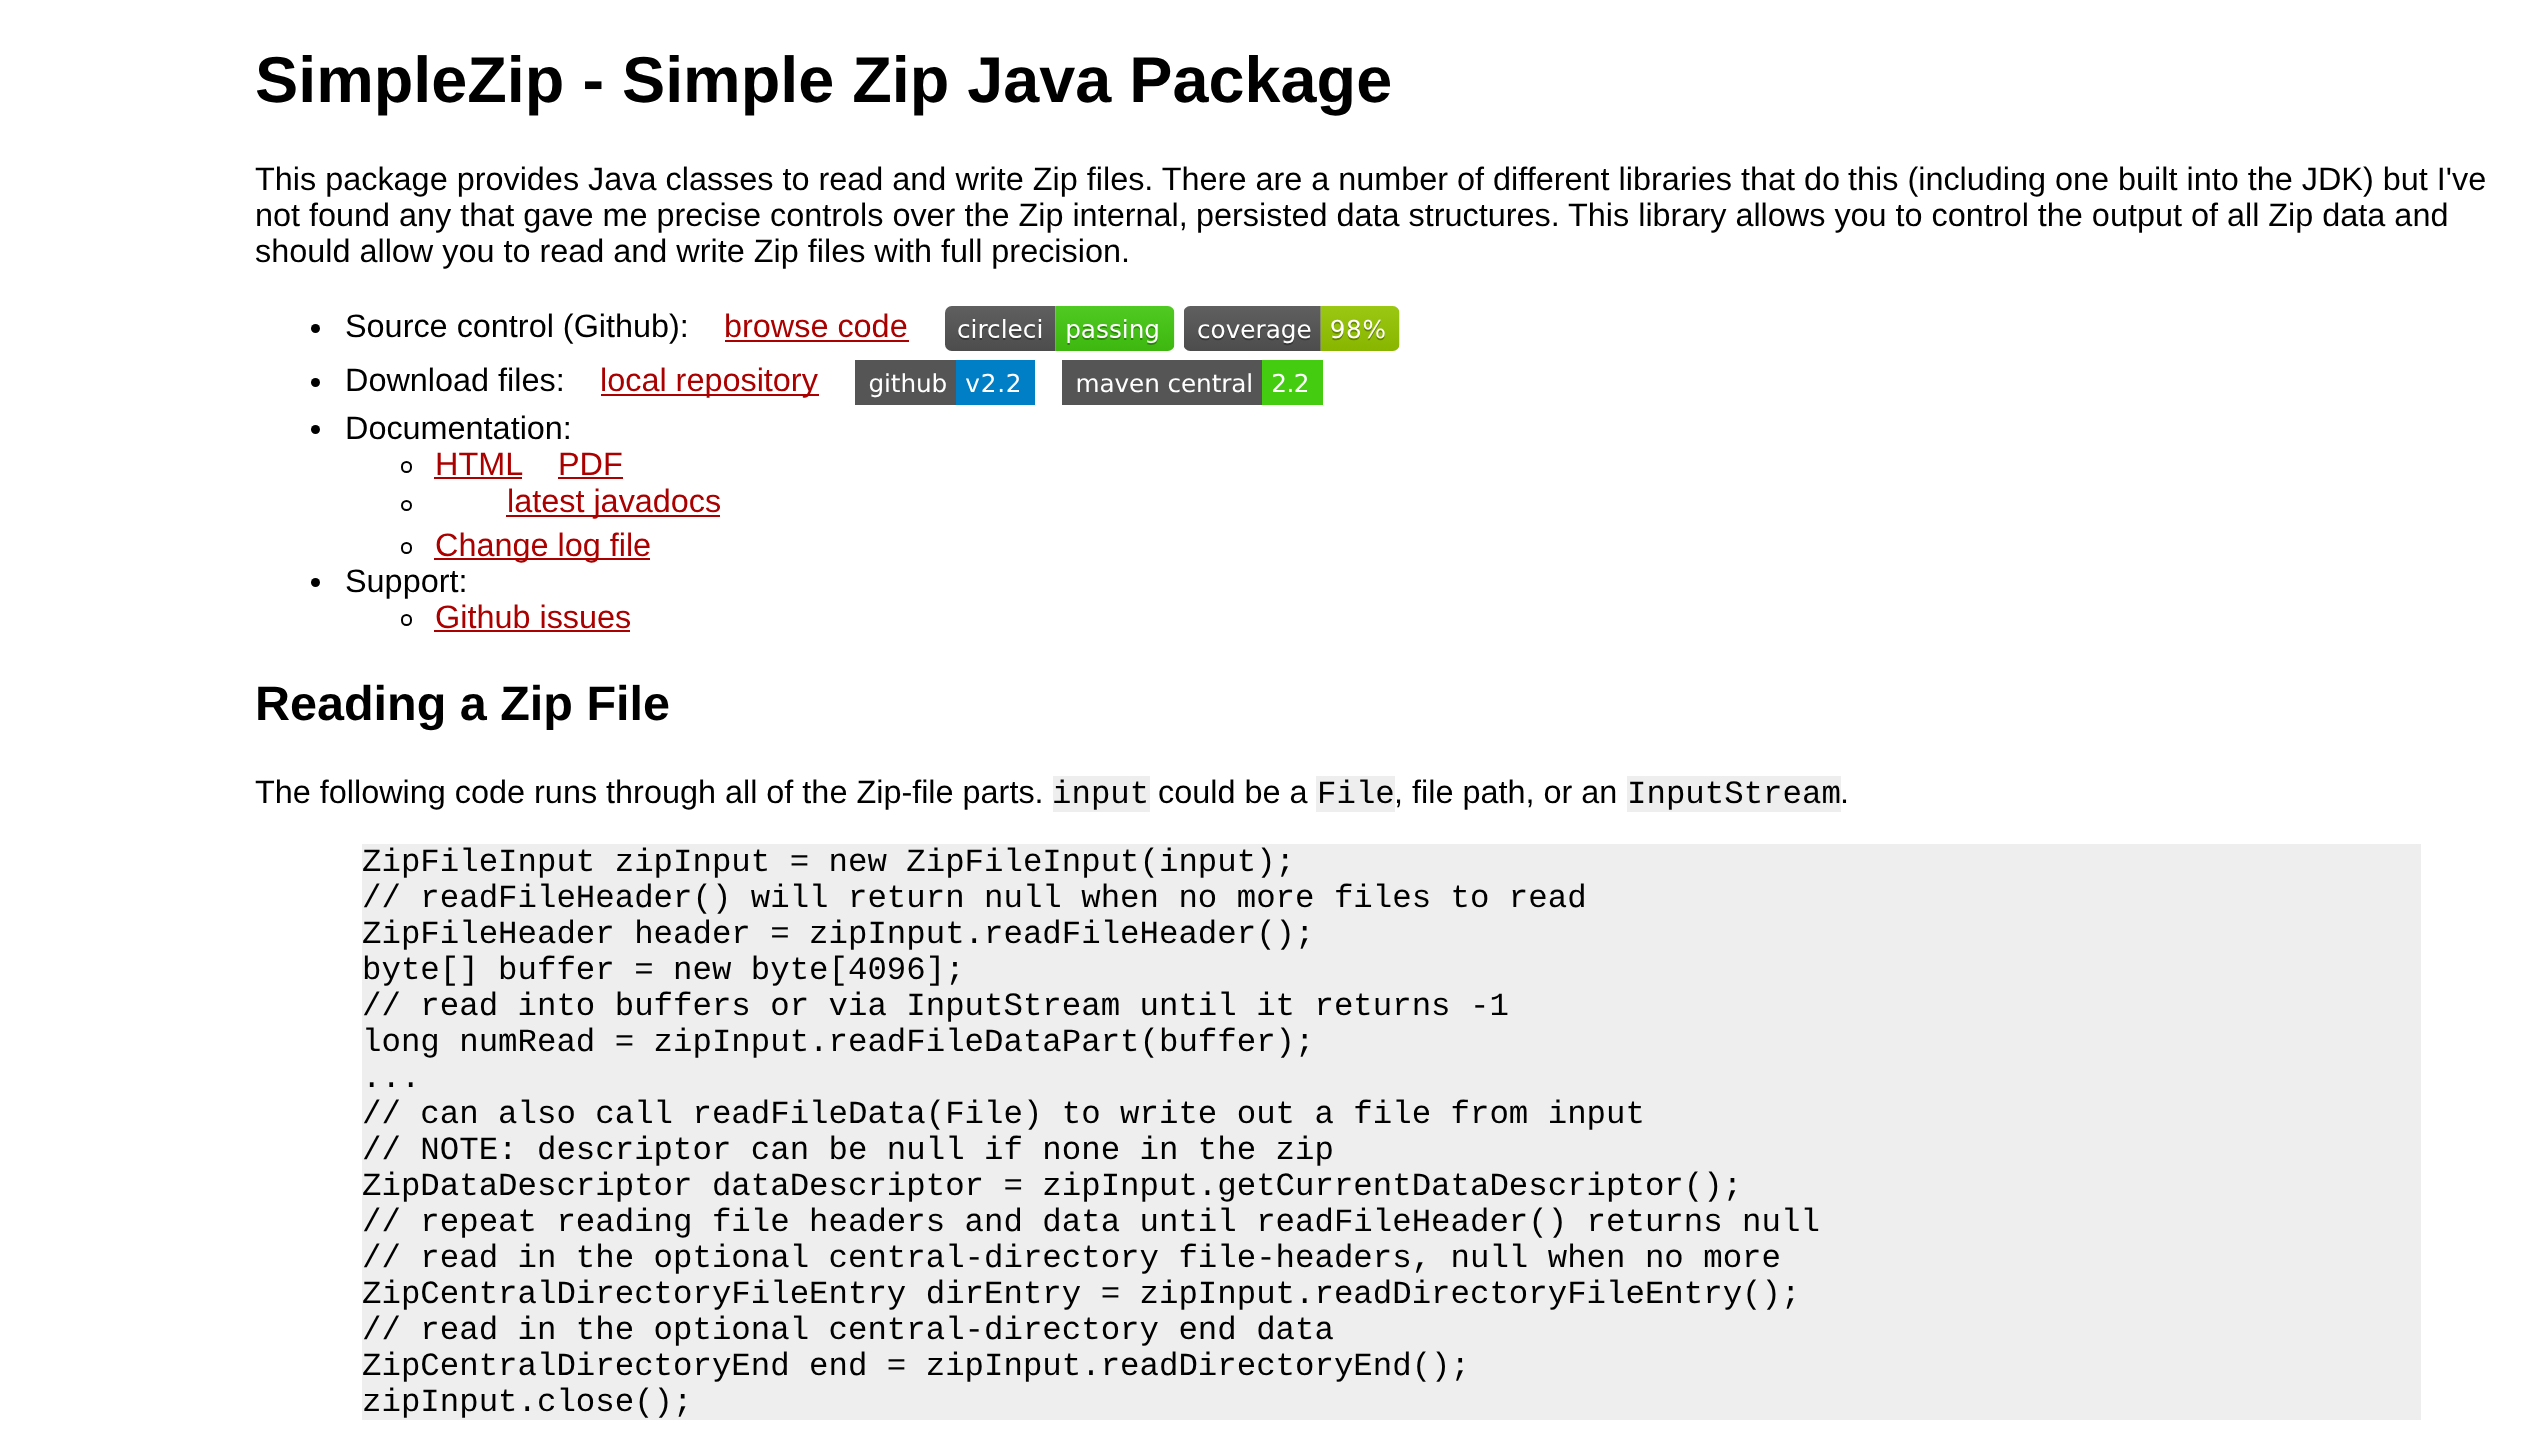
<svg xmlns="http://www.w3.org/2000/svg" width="2545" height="1453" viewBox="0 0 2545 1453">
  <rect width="100%" height="100%" fill="#fff"/>
  <circle cx="315.5" cy="328.5" r="4.5" fill="#000"/>
  <path d="M725 340h184v2H725z" fill="#a00"/>
  <image x="945" y="306" width="230" height="45" href="img/1.png"/>
  <image x="1184" y="306" width="216" height="45" href="img/2.png"/>
  <circle cx="315.5" cy="382.5" r="4.5" fill="#000"/>
  <path d="M601 394h218v2H601z" fill="#a00"/>
  <image x="855" y="360" width="180" height="45" href="img/3.png"/>
  <image x="1062" y="360" width="261" height="45" href="img/4.png"/>
  <circle cx="315.5" cy="429.5" r="4.5" fill="#000"/>
  <rect x="402" y="462" width="9" height="10" rx="4.5" fill="none" stroke="#000" stroke-width="2"/>
  <path d="M434 477h88v2H434z" fill="#a00"/>
  <path d="M558 477h65v2H558z" fill="#a00"/>
  <circle cx="406.5" cy="505.5" r="4.5" fill="none" stroke="#000" stroke-width="2"/>
  <path d="M506 515h214v2H506z" fill="#a00"/>
  <rect x="402" y="543" width="9" height="10" rx="4.5" fill="none" stroke="#000" stroke-width="2"/>
  <path d="M434 558h216v2H434z" fill="#a00"/>
  <circle cx="315.5" cy="582.5" r="4.5" fill="#000"/>
  <rect x="402" y="615" width="9" height="10" rx="4.5" fill="none" stroke="#000" stroke-width="2"/>
  <path d="M434 630h196v2H434z" fill="#a00"/>
  <path d="M1053 776h97v36H1053z" fill="#eee"/>
  <path d="M1316 776h79v36H1316z" fill="#eee"/>
  <path d="M1627 776h214v36H1627z" fill="#eee"/>
  <path d="M362 844h2059v576H362z" fill="#eee"/>
  <text x="255" y="102" font-family="Liberation Sans" font-size="64.75" font-weight="bold" fill="#000">SimpleZip - Simple Zip Java Package</text>
  <g font-family="Liberation Sans" font-size="32.4" fill="#000">
    <text x="255" y="190">This package provides Java classes to read and write Zip files. There are a number of different libraries that do</text>
    <text x="1848" y="190">this (including one built into the JDK) but I've</text>
    <text x="255" y="226">not found any that gave me precise controls over the Zip internal,</text>
    <text x="1196" y="226">persisted data structures.</text>
    <text x="1568" y="226">This library allows you to control the output of all Zip data and</text>
    <text x="255" y="262">should allow you to read and write Zip files with full precision.</text>
    <text x="345" y="337">Source control (Github):</text>
  </g>
  <text x="724" y="337" font-family="Liberation Sans" font-size="32.4" fill="#a00">browse code</text>
  <text x="345" y="391" font-family="Liberation Sans" font-size="32.4" fill="#000">Download files:</text>
  <text x="600" y="391" font-family="Liberation Sans" font-size="32.4" fill="#a00">local repository</text>
  <text x="345" y="439" font-family="Liberation Sans" font-size="32.4" fill="#000">Documentation:</text>
  <g font-family="Liberation Sans" font-size="32.4" fill="#a00">
    <text x="435" y="475">HTML</text>
    <text x="558" y="475">PDF</text>
    <text x="507" y="512">latest javadocs</text>
    <text x="435" y="556">Change log file</text>
  </g>
  <text x="345" y="592" font-family="Liberation Sans" font-size="32.4" fill="#000">Support:</text>
  <text x="435" y="628" font-family="Liberation Sans" font-size="32.4" fill="#a00">Github issues</text>
  <text x="255" y="720" font-family="Liberation Sans" font-size="48.5" font-weight="bold" fill="#000">Reading a Zip File</text>
  <text x="255" y="803" font-family="Liberation Sans" font-size="32.4" fill="#000">The following code runs through all of the Zip-file parts.</text>
  <text x="1052" y="803" font-family="Liberation Mono" font-size="32.4" fill="#000">input</text>
  <text x="1158" y="803" font-family="Liberation Sans" font-size="32.4" fill="#000">could be a</text>
  <text x="1317" y="803" font-family="Liberation Mono" font-size="32.4" fill="#000">File</text>
  <text x="1394" y="803" font-family="Liberation Sans" font-size="32.4" fill="#000">, file path, or an</text>
  <text x="1627" y="803" font-family="Liberation Mono" font-size="32.4" fill="#000">InputStream</text>
  <text x="1840" y="803" font-family="Liberation Sans" font-size="32.4" fill="#000">.</text>
  <g font-family="Liberation Mono" font-size="32.4" fill="#000">
    <text x="362" y="871">ZipFileInput zipInput = new ZipFileInput(input);</text>
    <text x="362" y="907">// readFileHeader() will return null when no more files to read</text>
    <text x="362" y="943">ZipFileHeader header = zipInput.readFileHeader();</text>
    <text x="362" y="979">byte[] buffer = new byte[4096];</text>
    <text x="362" y="1015">// read into buffers or via InputStream until it returns -1</text>
    <text x="362" y="1051">long numRead = zipInput.readFileDataPart(buffer);</text>
    <text x="362" y="1087">...</text>
    <text x="362" y="1123">// can also call readFileData(File) to write out a file from input</text>
    <text x="362" y="1159">// NOTE: descriptor can be null if none in the zip</text>
    <text x="362" y="1195">ZipDataDescriptor dataDescriptor = zipInput.getCurrentDataDescriptor();</text>
    <text x="362" y="1231">// repeat reading file headers and data until readFileHeader() returns null</text>
    <text x="362" y="1267">// read in the optional central-directory file-headers, null when no more</text>
    <text x="362" y="1303">ZipCentralDirectoryFileEntry dirEntry = zipInput.readDirectoryFileEntry();</text>
    <text x="362" y="1339">// read in the optional central-directory end data</text>
    <text x="362" y="1375">ZipCentralDirectoryEnd end = zipInput.readDirectoryEnd();</text>
    <text x="362" y="1411">zipInput.close();</text>
  </g>
</svg>
